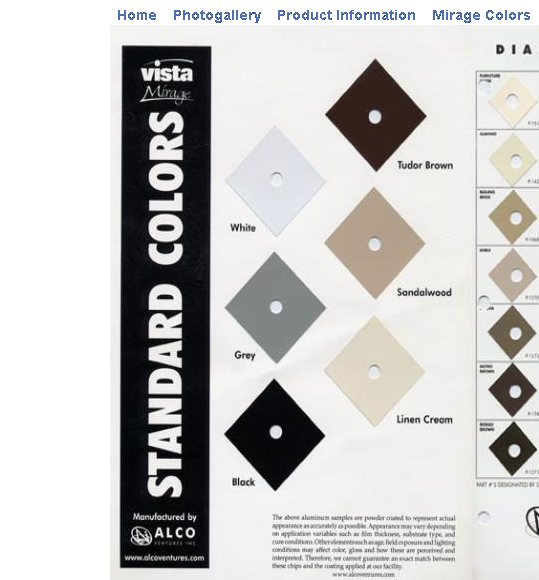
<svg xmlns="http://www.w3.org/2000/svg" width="539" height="580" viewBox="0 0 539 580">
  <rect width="100%" height="100%" fill="#fff"/>
  <image x="118" y="10" width="38" height="10" href="img/1.png"/>
  <image x="174" y="10" width="87" height="13" href="img/2.png"/>
  <image x="278" y="10" width="137" height="10" href="img/3.png"/>
  <image x="433" y="10" width="97" height="13" href="img/4.png"/>
  <image x="110" y="25" width="429" height="555" href="img/5.png"/>
</svg>
